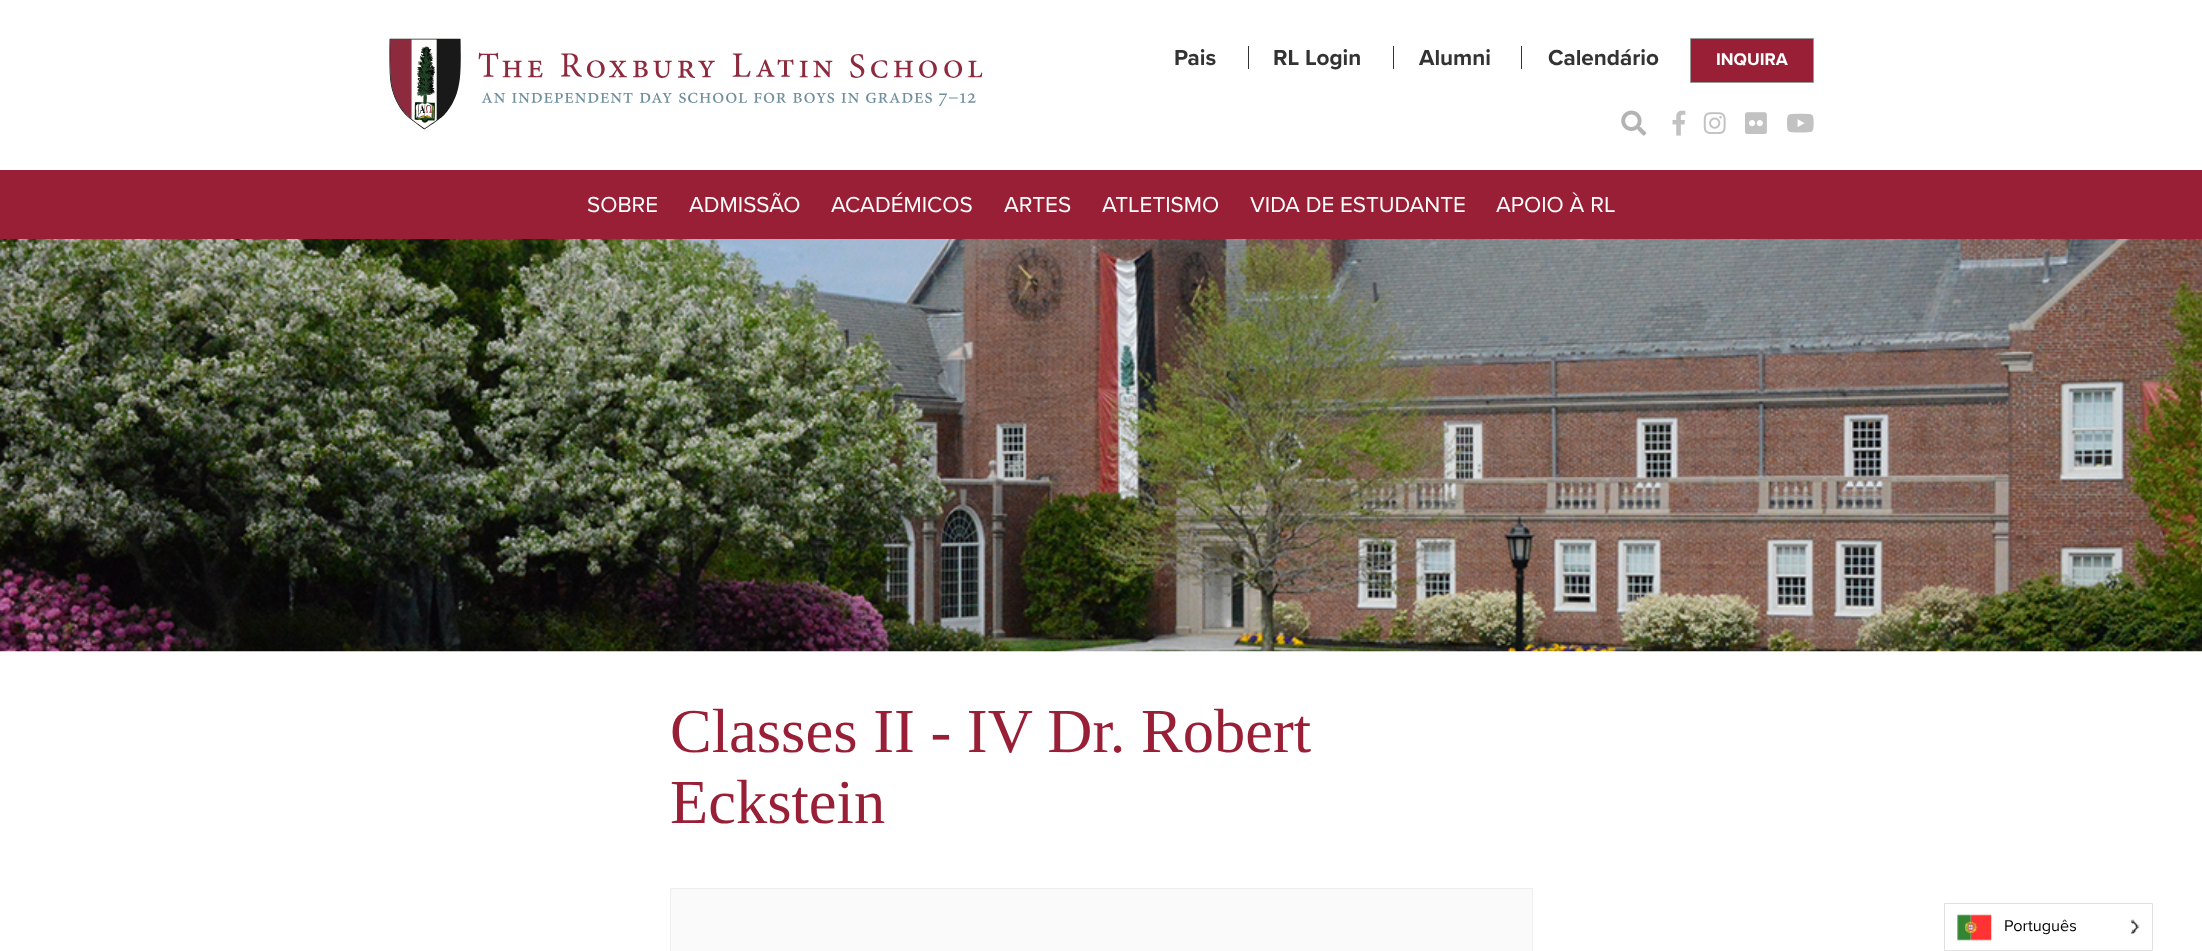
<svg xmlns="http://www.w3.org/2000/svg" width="2202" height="951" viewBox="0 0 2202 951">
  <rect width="100%" height="100%" fill="#fff"/>
  <image x="389" y="38" width="594" height="92" href="img/1.png"/>
  <path d="M1248 46h1v23H1248z" fill="#343333"/>
  <path d="M1393 46h1v23H1393z" fill="#343333"/>
  <path d="M1521 46h1v23H1521z" fill="#343333"/>
  <path d="M1690.5 38.5h123v44H1690.5z" fill="#991f36" stroke="#999"/>
  <image x="1621" y="110" width="26" height="26" href="img/2.png"/>
  <image x="1672" y="110" width="14" height="26" href="img/3.png"/>
  <image x="1703" y="112" width="23" height="22" href="img/4.png"/>
  <image x="1745" y="112" width="22" height="22" href="img/5.png"/>
  <image x="1787" y="113" width="27" height="20" href="img/6.png"/>
  <path d="M0 170h2202v69H0z" fill="#991f36"/>
  <image x="0" y="239" width="2202" height="413" href="img/7.png"/>
  <path d="M670.5 888.5h862v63H670.5z" fill="#fafafa" stroke="#eee"/>
  <path d="M1944.5 903.5h208v47H1944.5z" fill="none" stroke="#e0e0e0"/>
  <image x="1957" y="914" width="35" height="27" href="img/8.png"/>
  <image x="2131" y="919" width="9" height="15" href="img/9.png"/>
  <g font-family="Proxima Nova" font-size="22.5" font-weight="bold" fill="#343333">
    <text x="1174" y="65">Pais</text>
    <text x="1273" y="65">RL Login</text>
    <text x="1419" y="65">Alumni</text>
    <text x="1548" y="65">Calendário</text>
  </g>
  <text x="1716" y="65" font-family="Proxima Nova" font-size="17.5" font-weight="bold" fill="#fff">INQUIRA</text>
  <g font-family="Proxima Nova" font-size="22.5" fill="#fff">
    <text x="587" y="212">SOBRE</text>
    <text x="689" y="212">ADMISSÃO</text>
    <text x="831" y="212">ACADÉMICOS</text>
    <text x="1004" y="212">ARTES</text>
    <text x="1102" y="212">ATLETISMO</text>
    <text x="1250" y="212">VIDA DE ESTUDANTE</text>
    <text x="1496" y="212">APOIO À RL</text>
  </g>
  <g font-family="Liberation Serif" font-size="62.5" fill="#991f36">
    <text x="670" y="752">Classes II - IV Dr. Robert</text>
    <text x="670" y="823">Eckstein</text>
  </g>
  <text x="2004" y="931" font-family="Proxima Nova" font-size="16.25" fill="#000">Português</text>
</svg>
